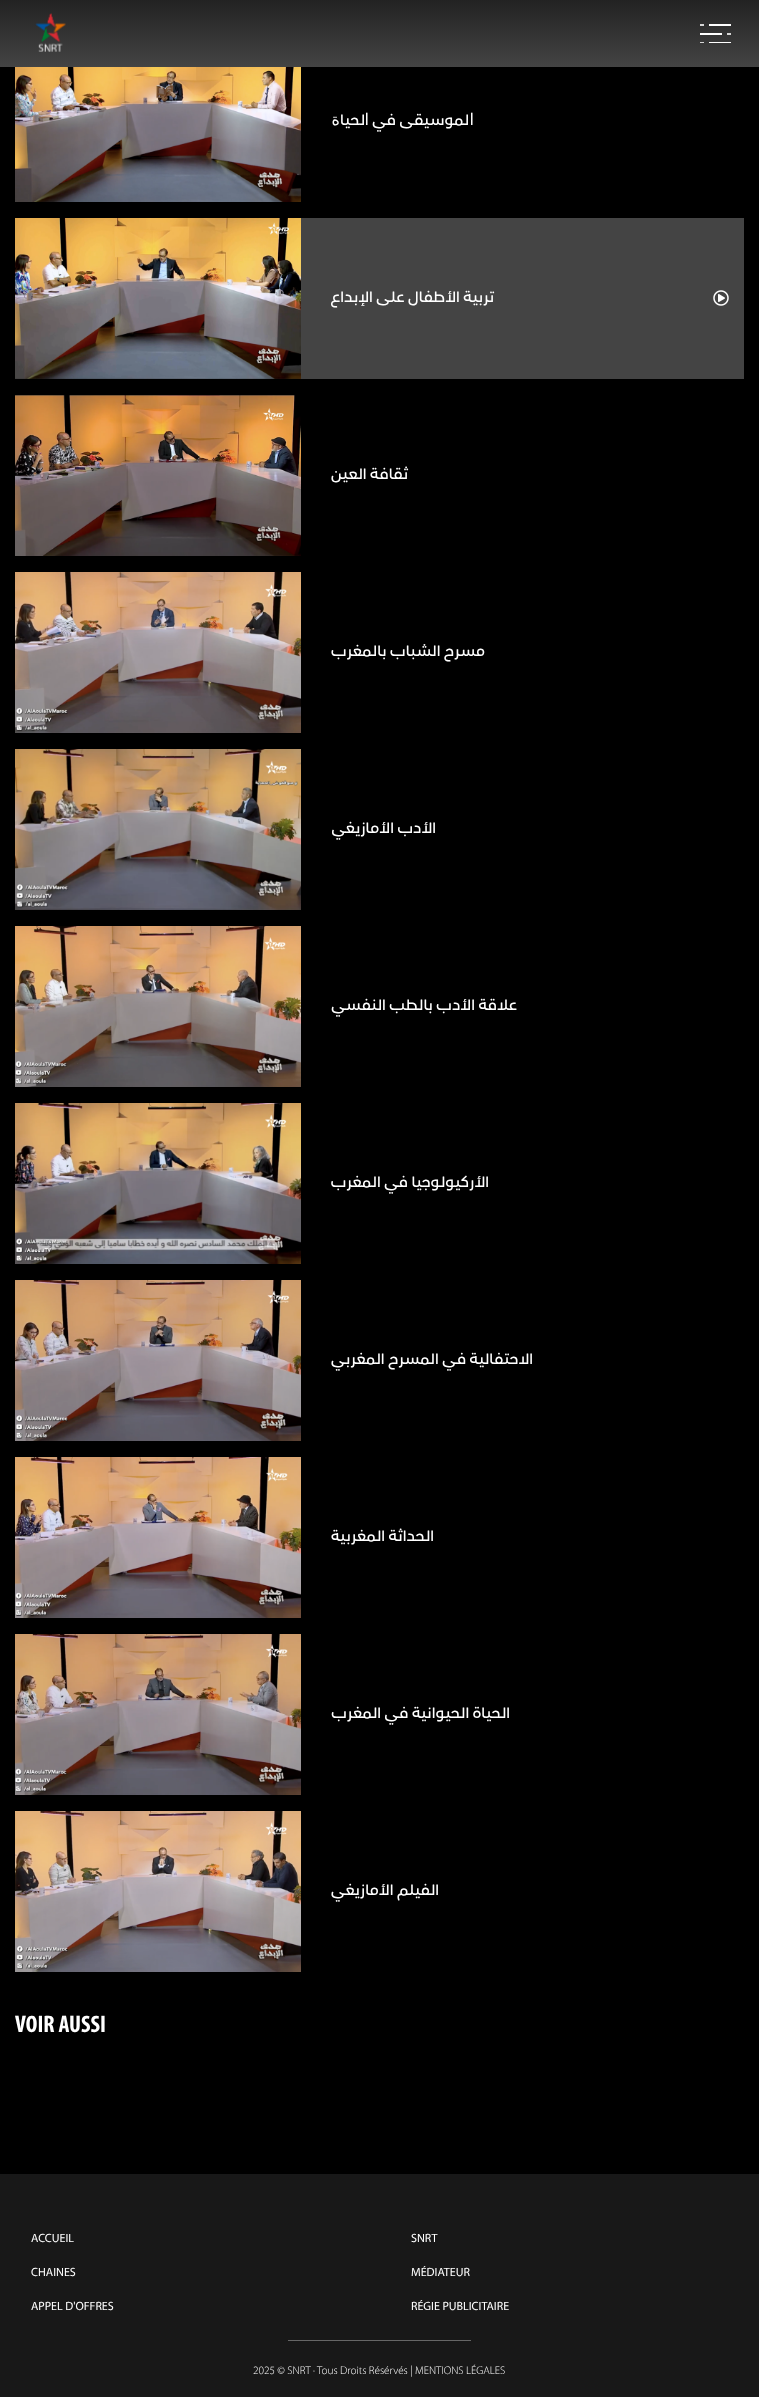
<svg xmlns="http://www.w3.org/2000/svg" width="759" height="2397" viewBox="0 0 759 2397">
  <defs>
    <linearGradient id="g1" gradientUnits="userSpaceOnUse" x1="380" y1="0" x2="380" y2="67"><stop offset="0" stop-color="#222"/><stop offset="1" stop-color="#444"/></linearGradient>
  </defs>
  <rect width="100%" height="100%" fill="#000"/>
  <path d="M0 0h759v67H0z" fill="url(#g1)"/>
  <path d="M709 24h22v2H709z" fill="#fff"/>
  <path d="M700 24h4v2H700z" fill="#d6d6d6"/>
  <path d="M700 33h22v2H700z" fill="#fff"/>
  <path d="M727 33h4v2H727z" fill="#d6d6d6"/>
  <path d="M709 42h22v1H709z" fill="#fff"/>
  <path d="M700 42h4v1H700z" fill="#d6d6d6"/>
  <image x="35" y="13" width="31" height="39" href="img/1.png"/>
  <image x="15" y="67" width="286" height="135" href="img/2.png"/>
  <path d="M301 218h443v161H301z" fill="#444"/>
  <image x="713" y="290" width="16" height="16" href="img/3.png"/>
  <image x="15" y="218" width="286" height="161" href="img/4.png"/>
  <image x="15" y="395" width="286" height="161" href="img/5.png"/>
  <image x="15" y="572" width="286" height="161" href="img/6.png"/>
  <image x="15" y="749" width="286" height="161" href="img/7.png"/>
  <image x="15" y="926" width="286" height="161" href="img/8.png"/>
  <image x="15" y="1103" width="286" height="161" href="img/9.png"/>
  <image x="15" y="1280" width="286" height="161" href="img/10.png"/>
  <image x="15" y="1457" width="286" height="161" href="img/11.png"/>
  <image x="15" y="1634" width="286" height="161" href="img/12.png"/>
  <image x="15" y="1811" width="286" height="161" href="img/13.png"/>
  <path d="M0 2174h759v223H0z" fill="#181818"/>
  <path d="M288 2340h183v1H288z" fill="#666"/>
  <text x="474" y="125" font-family="DejaVu Sans" font-size="16" direction="rtl" fill="#fff">ﺍ</text>
  <text x="469" y="125" word-spacing="-0.5" font-family="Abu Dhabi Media" font-size="16" direction="rtl" fill="#fff">ﻟﻤﻮﺳﻴﻘﻰ ﻓﻲ</text>
  <text x="369" y="125" font-family="DejaVu Sans" font-size="16" direction="rtl" fill="#fff">ﺍ</text>
  <text x="365" y="125" font-family="Abu Dhabi Media" font-size="16" direction="rtl" fill="#fff">ﻟﺤﻴﺎ</text>
  <text x="340" y="125" font-family="DejaVu Sans" font-size="16" direction="rtl" fill="#fff">ﺓ</text>
  <g font-family="Abu Dhabi Media" font-size="16" direction="rtl" fill="#fff">
    <text x="494" y="302" word-spacing="-0.5">تربية الأطفال على الإبداع</text>
    <text x="408" y="479" word-spacing="-0.5">ثقافة العين</text>
    <text x="485" y="656" word-spacing="-0.5">مسرح الشباب بالمغرب</text>
    <text x="436" y="833" word-spacing="-0.5">الأدب الأمازيغي</text>
    <text x="517" y="1010" word-spacing="-0.5">علاقة الأدب بالطب النفسي</text>
    <text x="489" y="1187" word-spacing="-0.5">الأركيولوجيا في المغرب</text>
    <text x="533" y="1364" word-spacing="-0.5">الاحتفالية في المسرح المغربي</text>
    <text x="434" y="1541" word-spacing="-0.5">الحداثة المغربية</text>
    <text x="510" y="1718" word-spacing="-0.5">الحياة الحيوانية في المغرب</text>
    <text x="439" y="1895" word-spacing="-0.5">الفيلم الأمازيغي</text>
  </g>
  <text x="15" y="2032" font-family="Myriad" font-size="24" font-weight="bold" fill="#fff">VOIR AUSSI</text>
  <g font-family="Myriad" font-size="12" fill="#fff">
    <text x="411" y="2242">SNRT</text>
    <text x="31" y="2242">ACCUEIL</text>
    <text x="411" y="2276">MÉDIATEUR</text>
    <text x="31" y="2276">CHAINES</text>
    <text x="411" y="2310">RÉGIE PUBLICITAIRE</text>
    <text x="31" y="2310">APPEL D'OFFRES</text>
  </g>
  <text x="253" y="2374" font-family="Myriad" font-size="11.2" font-weight="300" fill="#fff">2025 © SNRT · Tous Droits Résérvés | MENTIONS LÉGALES</text>
</svg>
